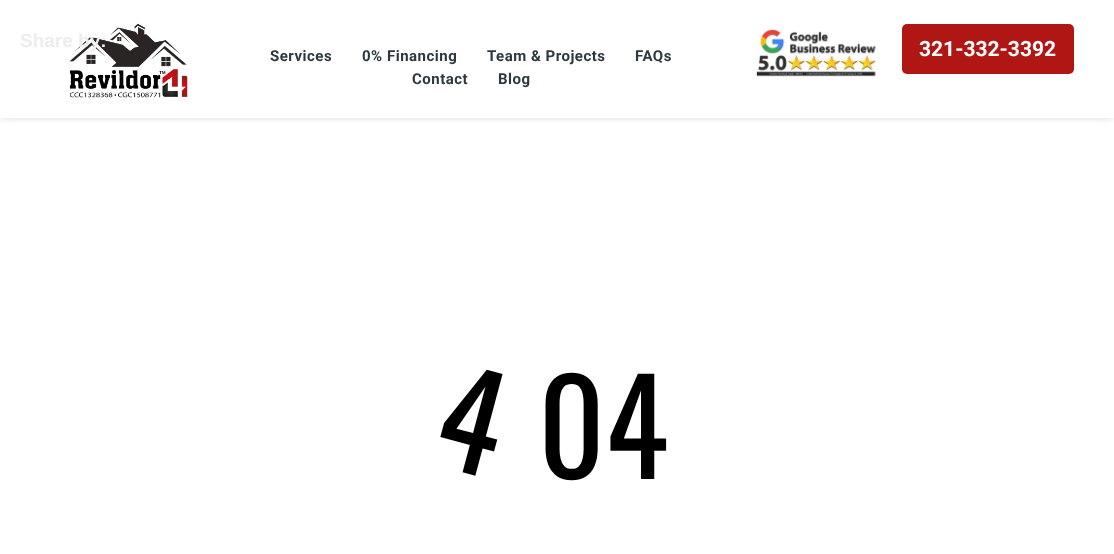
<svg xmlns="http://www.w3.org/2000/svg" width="1114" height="554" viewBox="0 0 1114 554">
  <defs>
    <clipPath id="clip1"><path d="M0 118h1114v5H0z"/></clipPath>
  </defs>
  <rect width="100%" height="100%" fill="#fff"/>
  <g clip-path="url(#clip1)">
    <path d="M0 -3h1114v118H0z" fill="#00000040" filter="blur(5.5px)"/>
  </g>
  <image x="69" y="23" width="119" height="75" href="img/1.png"/>
  <image x="756" y="29" width="120" height="48" href="img/2.png"/>
  <rect x="902" y="24" width="172" height="50" rx="5" fill="#af1614"/>
  <text x="20" y="47" font-family="Liberation Sans" font-size="19" font-weight="bold" fill="#eeeded">Share by:</text>
  <g font-family="Roboto" font-size="15" font-weight="bold" letter-spacing="0.5" fill="#2c393f">
    <text x="270" y="61">Services</text>
    <text x="362" y="61">0% Financing</text>
    <text x="487" y="61">Team &amp; Projects</text>
    <text x="635" y="61">FAQs</text>
    <text x="412" y="84">Contact</text>
    <text x="498" y="84">Blog</text>
  </g>
  <text x="919" y="56" font-family="Roboto" font-size="21" font-weight="bold" fill="#fff">321-332-3392</text>
  <g font-family="Oswald" font-size="130" fill="#000">
    <text x="428" y="463" transform="rotate(15 428 463)">4</text>
    <text x="538" y="479">04</text>
  </g>
</svg>
